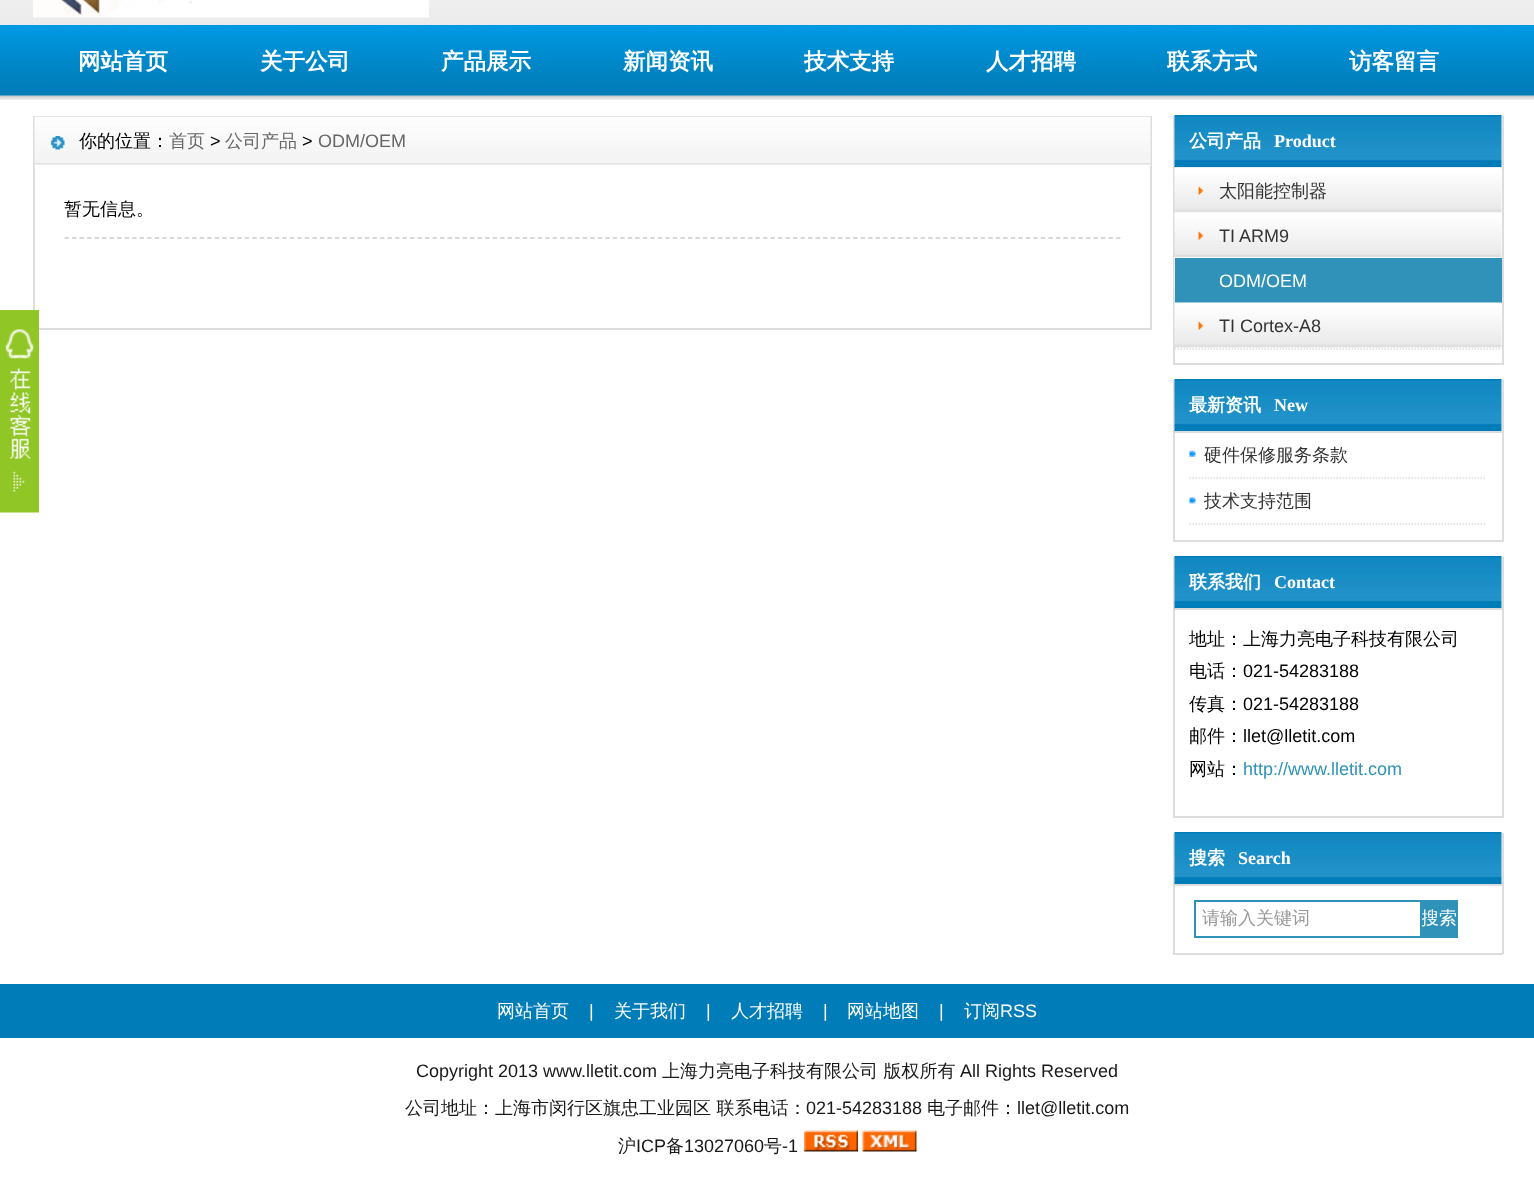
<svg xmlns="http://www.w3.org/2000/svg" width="1534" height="1193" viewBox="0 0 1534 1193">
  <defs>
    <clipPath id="clip1"><path d="M1422 900h36v38H1422z"/></clipPath>
  </defs>
  <rect width="100%" height="100%" fill="#fff"/>
  <image x="0" y="0" width="1534" height="25" href="img/1.png"/>
  <image x="33" y="0" width="396" height="18" href="img/2.png"/>
  <image x="0" y="25" width="1534" height="75" href="img/3.png"/>
  <path d="M34 117h1117v212H34z" fill="none" stroke="#ddd" stroke-width="2"/>
  <image x="34" y="116" width="1117" height="50" href="img/4.png"/>
  <image x="50" y="136" width="15" height="14" href="img/5.png"/>
  <path d="M64.5 238H1120.5" fill="none" stroke="#ccc" stroke-width="1.5" stroke-dasharray="4.5 3.01"/>
  <path d="M1502 116h2v249H1502z" fill="#ddd"/>
  <path d="M1173 363h330v2H1173z" fill="#ddd"/>
  <path d="M1173 116h2v249H1173z" fill="#ddd"/>
  <image x="1174" y="115" width="328" height="53" href="img/6.png"/>
  <path d="M1175 167h327v2H1175z" fill="#ddd"/>
  <image x="1174" y="167" width="328" height="46" href="img/7.png"/>
  <image x="1198" y="186" width="6" height="9" href="img/8.png"/>
  <path d="M1174.5 214H1501.5" fill="none" stroke="#ddd" stroke-width="1.5" stroke-dasharray="1.5 1.5"/>
  <image x="1174" y="212" width="328" height="46" href="img/9.png"/>
  <image x="1198" y="231" width="6" height="9" href="img/8.png"/>
  <path d="M1174.5 259H1501.5" fill="none" stroke="#ddd" stroke-width="1.5" stroke-dasharray="1.5 1.5"/>
  <image x="1174" y="257" width="328" height="46" href="img/9.png"/>
  <path d="M1175 258h327v45H1175z" fill="#3092b9"/>
  <image x="1174" y="302" width="328" height="46" href="img/10.png"/>
  <image x="1198" y="321" width="6" height="9" href="img/8.png"/>
  <path d="M1174.5 349H1501.5" fill="none" stroke="#ddd" stroke-width="1.5" stroke-dasharray="1.5 1.5"/>
  <path d="M1502 380h2v162H1502z" fill="#ddd"/>
  <path d="M1173 540h330v2H1173z" fill="#ddd"/>
  <path d="M1173 380h2v162H1173z" fill="#ddd"/>
  <image x="1174" y="379" width="328" height="53" href="img/6.png"/>
  <path d="M1175 431h327v2H1175z" fill="#ddd"/>
  <image x="1189" y="449" width="7" height="8" href="img/11.png"/>
  <path d="M1189.5 478H1486.5" fill="none" stroke="#ddd" stroke-width="1.5" stroke-dasharray="1.5 1.5"/>
  <image x="1189" y="496" width="7" height="8" href="img/12.png"/>
  <path d="M1189.5 524H1486.5" fill="none" stroke="#ddd" stroke-width="1.5" stroke-dasharray="1.5 1.5"/>
  <path d="M1502 557h2v261H1502z" fill="#ddd"/>
  <path d="M1173 816h330v2H1173z" fill="#ddd"/>
  <path d="M1173 557h2v261H1173z" fill="#ddd"/>
  <image x="1174" y="556" width="328" height="53" href="img/6.png"/>
  <path d="M1175 608h327v2H1175z" fill="#ddd"/>
  <path d="M1502 833h2v121H1502z" fill="#ddd"/>
  <path d="M1173 953h330v2H1173z" fill="#ddd"/>
  <path d="M1173 833h2v121H1173z" fill="#ddd"/>
  <image x="1174" y="832" width="328" height="53" href="img/6.png"/>
  <path d="M1175 884h327v2H1175z" fill="#ddd"/>
  <path d="M1195 901h226v36H1195z" fill="none" stroke="#3092b9" stroke-width="2"/>
  <path d="M1422 900h36v38H1422z" fill="#3092b9"/>
  <image x="0" y="310" width="39" height="203" href="img/13.png"/>
  <path d="M0 984h1534v54H0z" fill="#007cb8"/>
  <image x="804" y="1130" width="54" height="22" href="img/14.png"/>
  <image x="862" y="1130" width="55" height="22" href="img/15.png"/>
  <g font-family="WenQuanYi Zen Hei" font-size="22.5" font-weight="bold" fill="#fff">
    <text x="78" y="69">网站首页</text>
    <text x="260" y="69">关于公司</text>
    <text x="441" y="69">产品展示</text>
    <text x="623" y="69">新闻资讯</text>
    <text x="804" y="69">技术支持</text>
    <text x="986" y="69">人才招聘</text>
    <text x="1167" y="69">联系方式</text>
    <text x="1349" y="69">访客留言</text>
  </g>
  <text x="79" y="147" font-family="WenQuanYi Zen Hei" font-size="18" font-weight="500" fill="#000">你的位置：</text>
  <text x="169" y="147" font-family="WenQuanYi Zen Hei" font-size="18" font-weight="500" fill="#666">首页</text>
  <text x="210" y="147" font-family="Liberation Sans" font-size="18" fill="#000">&gt;</text>
  <text x="225" y="147" font-family="WenQuanYi Zen Hei" font-size="18" font-weight="500" fill="#666">公司产品</text>
  <text x="302" y="147" font-family="Liberation Sans" font-size="18" fill="#000">&gt;</text>
  <text x="318" y="147" font-family="Liberation Sans" font-size="18" fill="#666">ODM/OEM</text>
  <text x="64" y="215" font-family="WenQuanYi Zen Hei" font-size="18" font-weight="500" fill="#000">暂无信息。</text>
  <text x="1189" y="147" font-family="WenQuanYi Zen Hei" font-size="18" font-weight="bold" fill="#fff">公司产品</text>
  <text x="1274" y="147" font-family="Liberation Serif" font-size="18" font-weight="bold" fill="#fff">Product</text>
  <text x="1219" y="197" font-family="WenQuanYi Zen Hei" font-size="18" font-weight="500" fill="#333">太阳能控制器</text>
  <text x="1219" y="242" font-family="Liberation Sans" font-size="18" fill="#333">TI ARM9</text>
  <text x="1219" y="287" font-family="Liberation Sans" font-size="18" fill="#fff">ODM/OEM</text>
  <text x="1219" y="332" font-family="Liberation Sans" font-size="18" fill="#333">TI Cortex-A8</text>
  <text x="1189" y="411" font-family="WenQuanYi Zen Hei" font-size="18" font-weight="bold" fill="#fff">最新资讯</text>
  <text x="1274" y="411" font-family="Liberation Serif" font-size="18" font-weight="bold" fill="#fff">New</text>
  <g font-family="WenQuanYi Zen Hei" font-size="18" font-weight="500" fill="#333">
    <text x="1204" y="461">硬件保修服务条款</text>
    <text x="1204" y="507">技术支持范围</text>
  </g>
  <text x="1189" y="588" font-family="WenQuanYi Zen Hei" font-size="18" font-weight="bold" fill="#fff">联系我们</text>
  <text x="1274" y="588" font-family="Liberation Serif" font-size="18" font-weight="bold" fill="#fff">Contact</text>
  <g font-family="WenQuanYi Zen Hei" font-size="18" font-weight="500" fill="#000">
    <text x="1189" y="645">地址：上海力亮电子科技有限公司</text>
    <text x="1189" y="677">电话：</text>
  </g>
  <text x="1243" y="677" font-family="Liberation Sans" font-size="18" fill="#000">021-54283188</text>
  <text x="1189" y="710" font-family="WenQuanYi Zen Hei" font-size="18" font-weight="500" fill="#000">传真：</text>
  <text x="1243" y="710" font-family="Liberation Sans" font-size="18" fill="#000">021-54283188</text>
  <text x="1189" y="742" font-family="WenQuanYi Zen Hei" font-size="18" font-weight="500" fill="#000">邮件：</text>
  <text x="1243" y="742" font-family="Liberation Sans" font-size="18" fill="#000">llet@lletit.com</text>
  <text x="1189" y="775" font-family="WenQuanYi Zen Hei" font-size="18" font-weight="500" fill="#000">网站：</text>
  <text x="1243" y="775" font-family="Liberation Sans" font-size="18" fill="#3092b9">http://www.lletit.com</text>
  <text x="1189" y="864" font-family="WenQuanYi Zen Hei" font-size="18" font-weight="bold" fill="#fff">搜索</text>
  <text x="1238" y="864" font-family="Liberation Serif" font-size="18" font-weight="bold" fill="#fff">Search</text>
  <text x="1202" y="924" font-family="WenQuanYi Zen Hei" font-size="18" font-weight="500" fill="#999">请输入关键词</text>
  <g clip-path="url(#clip1)">
    <text x="1421" y="924" font-family="WenQuanYi Zen Hei" font-size="18" font-weight="500" fill="#fff">搜索</text>
  </g>
  <text x="497" y="1017" font-family="WenQuanYi Zen Hei" font-size="18" font-weight="500" fill="#fff">网站首页</text>
  <text x="589" y="1017" font-family="Liberation Sans" font-size="18" fill="#fff">|</text>
  <text x="614" y="1017" font-family="WenQuanYi Zen Hei" font-size="18" font-weight="500" fill="#fff">关于我们</text>
  <text x="706" y="1017" font-family="Liberation Sans" font-size="18" fill="#fff">|</text>
  <text x="731" y="1017" font-family="WenQuanYi Zen Hei" font-size="18" font-weight="500" fill="#fff">人才招聘</text>
  <text x="823" y="1017" font-family="Liberation Sans" font-size="18" fill="#fff">|</text>
  <text x="847" y="1017" font-family="WenQuanYi Zen Hei" font-size="18" font-weight="500" fill="#fff">网站地图</text>
  <text x="939" y="1017" font-family="Liberation Sans" font-size="18" fill="#fff">|</text>
  <text x="964" y="1017" font-family="WenQuanYi Zen Hei" font-size="18" font-weight="500" fill="#fff">订阅</text>
  <text x="1000" y="1017" font-family="Liberation Sans" font-size="18" fill="#fff">RSS</text>
  <text x="416" y="1077" font-family="Liberation Sans" font-size="18" fill="#191919">Copyright 2013 www.lletit.com</text>
  <text x="662" y="1077" font-family="WenQuanYi Zen Hei" font-size="18" font-weight="500" fill="#191919">上海力亮电子科技有限公司 版权所有</text>
  <text x="960" y="1077" font-family="Liberation Sans" font-size="18" fill="#191919">All Rights Reserved</text>
  <text x="405" y="1114" font-family="WenQuanYi Zen Hei" font-size="18" font-weight="500" fill="#191919">公司地址：上海市闵行区旗忠工业园区 联系电话：</text>
  <text x="806" y="1114" font-family="Liberation Sans" font-size="18" fill="#191919">021-54283188</text>
  <text x="927" y="1114" font-family="WenQuanYi Zen Hei" font-size="18" font-weight="500" fill="#191919">电子邮件：</text>
  <text x="1017" y="1114" font-family="Liberation Sans" font-size="18" fill="#191919">llet@lletit.com</text>
  <text x="618" y="1152" font-family="WenQuanYi Zen Hei" font-size="18" font-weight="500" fill="#191919">沪</text>
  <text x="636" y="1152" font-family="Liberation Sans" font-size="18" fill="#191919">ICP</text>
  <text x="666" y="1152" font-family="WenQuanYi Zen Hei" font-size="18" font-weight="500" fill="#191919">备</text>
  <text x="684" y="1152" font-family="Liberation Sans" font-size="18" fill="#191919">13027060</text>
  <text x="764" y="1152" font-family="WenQuanYi Zen Hei" font-size="18" font-weight="500" fill="#191919">号</text>
  <text x="782" y="1152" font-family="Liberation Sans" font-size="18" fill="#191919">-1</text>
</svg>
